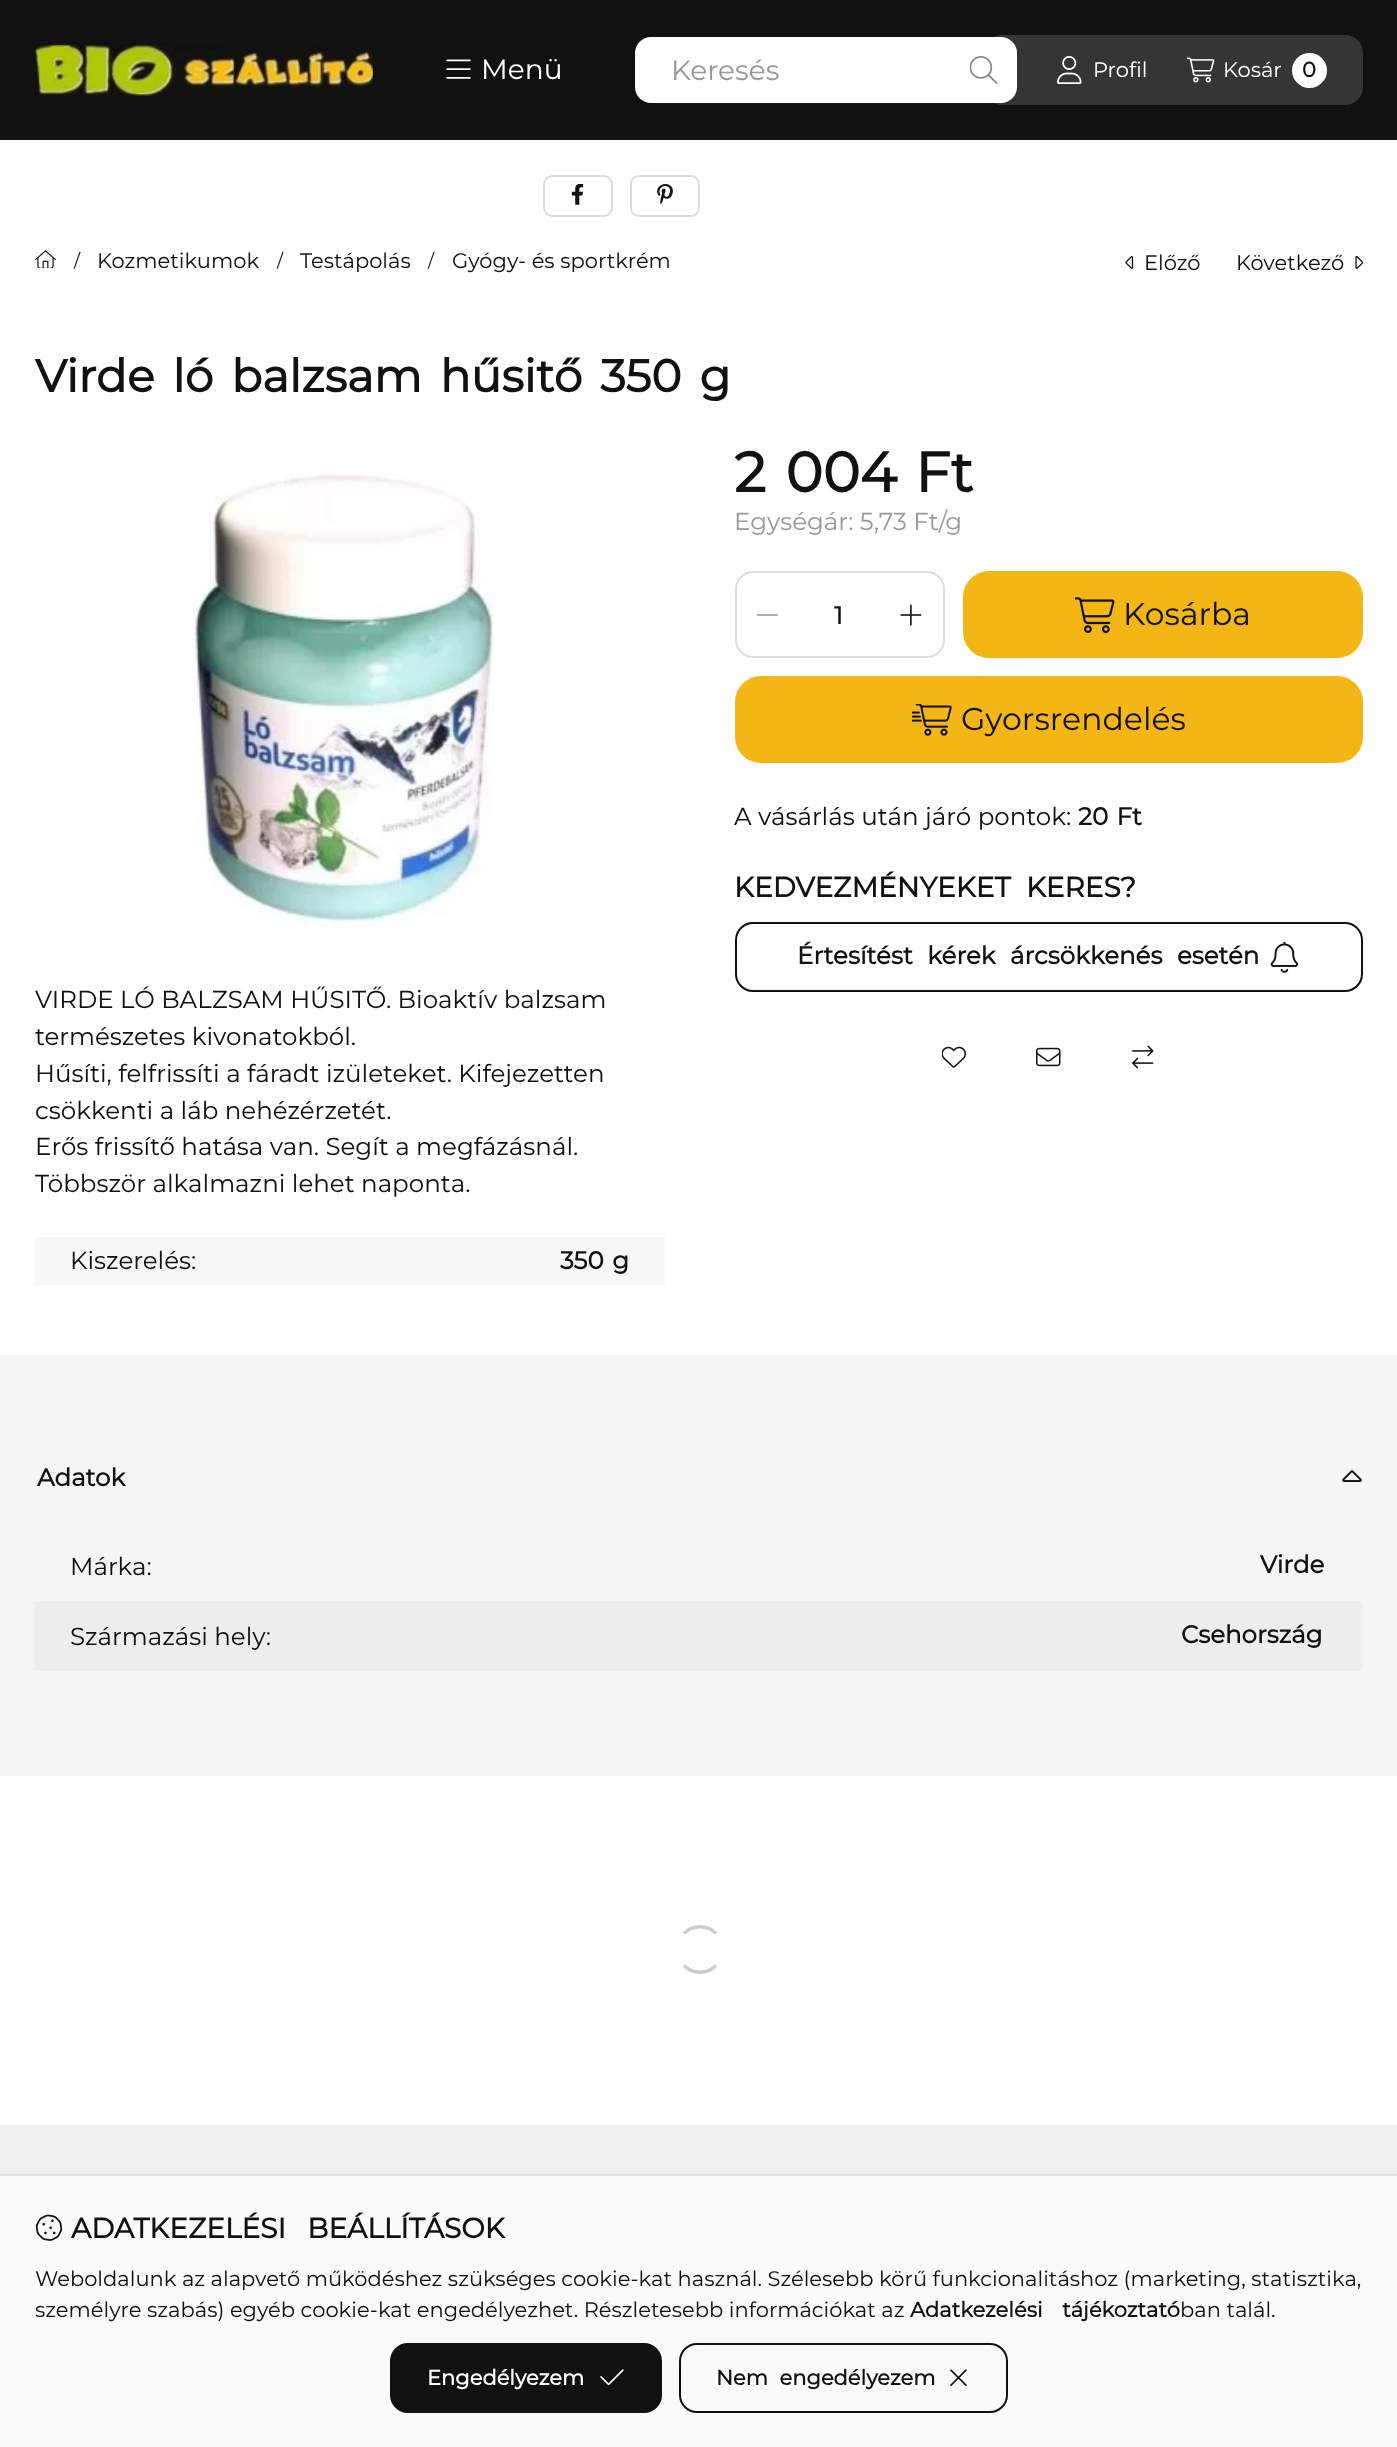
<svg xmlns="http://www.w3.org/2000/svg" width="1397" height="2447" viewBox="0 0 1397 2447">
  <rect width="100%" height="100%" fill="#f5f5f5"/>
  <path d="M0 0h1397v140H0z" fill="#111"/>
  <image x="35" y="44" width="338" height="52" href="img/1.png"/>
  <image x="446" y="59" width="25" height="20" href="img/2.png"/>
  <rect x="984" y="35" width="379" height="70" rx="18" fill="#353535"/>
  <rect x="635" y="37" width="382" height="66" rx="16" fill="#fff"/>
  <image x="970" y="56" width="28" height="28" href="img/3.png"/>
  <image x="1057" y="56" width="25" height="28" href="img/4.png"/>
  <image x="1187" y="57" width="28" height="26" href="img/5.png"/>
  <circle cx="1309.5" cy="70.5" r="17.5" fill="#fff"/>
  <path d="M0 140h1397v1215H0z" fill="#fff"/>
  <rect x="544" y="176" width="68" height="40" rx="8" fill="none" stroke="#ddd" stroke-width="2"/>
  <image x="571" y="184" width="13" height="21" href="img/6.png"/>
  <rect x="631" y="176" width="68" height="40" rx="8" fill="none" stroke="#ddd" stroke-width="2"/>
  <image x="657" y="184" width="16" height="21" href="img/7.png"/>
  <image x="35" y="250" width="21" height="18" href="img/8.png"/>
  <image x="1125" y="256" width="9" height="13" href="img/9.png"/>
  <image x="1355" y="256" width="8" height="13" href="img/10.png"/>
  <rect x="736" y="572" width="208" height="85" rx="17" fill="none" stroke="#ddd" stroke-width="2"/>
  <image x="756" y="614" width="22" height="2" href="img/11.png"/>
  <image x="900" y="604" width="22" height="22" href="img/12.png"/>
  <rect x="963" y="571" width="400" height="87" rx="26" fill="#f3b615"/>
  <image x="1075" y="597" width="40" height="37" href="img/13.png"/>
  <rect x="735" y="676" width="628" height="87" rx="26" fill="#f3b615"/>
  <image x="912" y="704" width="40" height="32" href="img/14.png"/>
  <rect x="736" y="923" width="626" height="68" rx="17" fill="none" stroke="#111" stroke-width="2"/>
  <image x="1270" y="942" width="29" height="31" href="img/15.png"/>
  <image x="942" y="1046" width="24" height="22" href="img/16.png"/>
  <image x="1036" y="1047" width="25" height="20" href="img/17.png"/>
  <image x="1132" y="1045" width="22" height="24" href="img/18.png"/>
  <image x="192" y="474" width="302" height="455" href="img/19.png"/>
  <path d="M35 1237h630v48H35z" fill="#f7f7f7"/>
  <image x="1342" y="1470" width="20" height="12" href="img/20.png"/>
  <path d="M35 1601h1328v70H35z" fill="#ededed"/>
  <path d="M0 1776h1397v349H0z" fill="#fff"/>
  <path d="M684 1933.5C692.5 1924.5 707.5 1924.5 716 1933.5M716 1965.5C707.5 1974.5 692.5 1974.5 684 1965.5" fill="none" stroke="#ccc" stroke-width="3.5"/>
  <path d="M0 2125h1397v49H0z" fill="#eee"/>
  <path d="M0 2176h1397v271H0z" fill="#fafafa"/>
  <path d="M0 2174h1397v2H0z" fill="#ddd"/>
  <image x="35" y="2214" width="28" height="27" href="img/21.png"/>
  <rect x="391" y="2344" width="270" height="68" rx="17" fill="#111" stroke="#111" stroke-width="2"/>
  <image x="600" y="2369" width="24" height="17" href="img/22.png"/>
  <rect x="680" y="2344" width="327" height="68" rx="17" fill="none" stroke="#111" stroke-width="2"/>
  <image x="950" y="2369" width="17" height="17" href="img/23.png"/>
  <text x="481" y="79" font-family="Montserrat" font-size="28" fill="#fff">Menü</text>
  <text x="671" y="80" font-family="Montserrat" font-size="28" fill="#999">Keresés</text>
  <g font-family="Montserrat" font-size="21" fill="#fff">
    <text x="1093" y="77">Profil</text>
    <text x="1223" y="77">Kosár</text>
  </g>
  <text x="1302" y="77" font-family="Montserrat" font-size="21" font-weight="bold" fill="#111">0</text>
  <text x="74" y="267" font-family="Montserrat" font-size="18" fill="#111">/</text>
  <text x="97" y="268" font-family="Montserrat" font-size="21" fill="#111">Kozmetikumok</text>
  <text x="277" y="267" font-family="Montserrat" font-size="18" fill="#111">/</text>
  <text x="300" y="268" font-family="Montserrat" font-size="21" fill="#111">Testápolás</text>
  <text x="428" y="267" font-family="Montserrat" font-size="18" fill="#111">/</text>
  <g font-family="Montserrat" font-size="21" fill="#111">
    <text x="452" y="268">Gyógy- és sportkrém</text>
    <text x="1144" y="270">Előző</text>
    <text x="1236" y="270">Következő</text>
  </g>
  <text x="35" y="392" word-spacing="6" font-family="Montserrat" font-size="45.5" font-weight="bold" fill="#111">Virde ló balzsam hűsitő 350 g</text>
  <g font-family="Montserrat" font-size="56" font-weight="bold" fill="#111">
    <text x="734" y="492" word-spacing="5">2 004</text>
    <text x="915" y="492">Ft</text>
  </g>
  <text x="734" y="530" font-family="Montserrat" font-size="24.5" fill="#999">Egységár: 5,73 Ft/g</text>
  <text x="834" y="624" font-family="Montserrat" font-size="24.5" font-weight="bold" fill="#111">1</text>
  <g font-family="Montserrat" font-size="31.5" fill="#111">
    <text x="1123" y="625">Kosárba</text>
    <text x="961" y="730">Gyorsrendelés</text>
  </g>
  <text x="734" y="825" font-family="Montserrat" font-size="24.5" fill="#111">A vásárlás után járó pontok:</text>
  <text x="1078" y="825" word-spacing="2" font-family="Montserrat" font-size="24.5" font-weight="bold" fill="#111">20 Ft</text>
  <text x="734" y="897" word-spacing="8" font-family="Montserrat" font-size="28" font-weight="bold" fill="#111">KEDVEZMÉNYEKET KERES?</text>
  <text x="797" y="964" word-spacing="8" font-family="Montserrat" font-size="24.5" font-weight="bold" fill="#111">Értesítést kérek árcsökkenés esetén</text>
  <g font-family="Montserrat" font-size="24.5" fill="#111">
    <text x="35" y="1008">VIRDE LÓ BALZSAM HŰSITŐ. Bioaktív balzsam</text>
    <text x="35" y="1045">természetes kivonatokból.</text>
    <text x="35" y="1082">Hűsíti, felfrissíti a fáradt izületeket. Kifejezetten</text>
    <text x="35" y="1119">csökkenti a láb nehézérzetét.</text>
    <text x="35" y="1155">Erős frissítő hatása van. Segít a megfázásnál.</text>
    <text x="35" y="1192">Többször alkalmazni lehet naponta.</text>
    <text x="70" y="1269">Kiszerelés:</text>
  </g>
  <g font-family="Montserrat" font-size="24.5" font-weight="bold" fill="#111">
    <text x="560" y="1269" word-spacing="2">350 g</text>
    <text x="37" y="1486">Adatok</text>
  </g>
  <text x="70" y="1575" font-family="Montserrat" font-size="24.5" fill="#111">Márka:</text>
  <text x="1260" y="1573" font-family="Montserrat" font-size="24.5" font-weight="bold" fill="#111">Virde</text>
  <text x="70" y="1645" font-family="Montserrat" font-size="24.5" fill="#111">Származási hely:</text>
  <text x="1181" y="1643" font-family="Montserrat" font-size="24.5" font-weight="bold" fill="#111">Csehország</text>
  <text x="71" y="2238" word-spacing="14" font-family="Montserrat" font-size="28" font-weight="bold" fill="#111">ADATKEZELÉSI BEÁLLÍTÁSOK</text>
  <g font-family="Montserrat" font-size="21" fill="#111">
    <text x="35" y="2286">Weboldalunk az alapvető működéshez szükséges cookie-kat használ. Szélesebb körű funkcionalitáshoz (marketing, statisztika,</text>
    <text x="35" y="2317">személyre szabás) egyéb cookie-kat engedélyezhet. Részletesebb információkat az</text>
  </g>
  <text x="910" y="2317" word-spacing="14" font-family="Montserrat" font-size="21" font-weight="bold" fill="#111">Adatkezelési tájékoztató</text>
  <text x="1180" y="2317" font-family="Montserrat" font-size="21" fill="#111">ban talál.</text>
  <text x="427" y="2385" font-family="Montserrat" font-size="21" font-weight="bold" fill="#fff">Engedélyezem</text>
  <text x="716" y="2385" word-spacing="6" font-family="Montserrat" font-size="21" font-weight="bold" fill="#111">Nem engedélyezem</text>
</svg>
